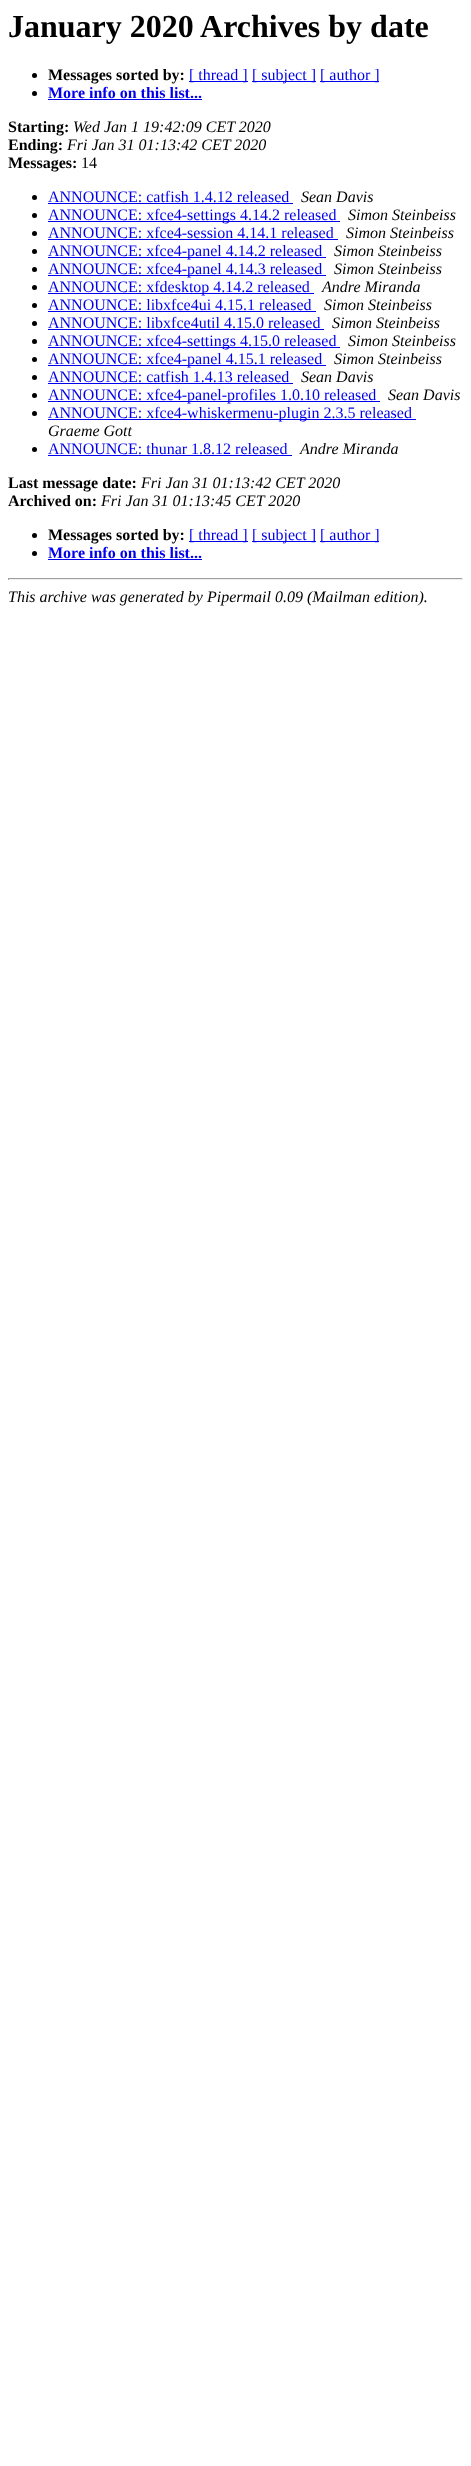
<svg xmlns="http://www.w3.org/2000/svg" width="471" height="2466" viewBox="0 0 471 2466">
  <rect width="100%" height="100%" fill="#fff"/>
  <circle cx="34.5" cy="75.5" r="2.5" fill="#000"/>
  <path d="M189 81h59v1H189z" fill="#00e"/>
  <path d="M252 81h64v1H252z" fill="#00e"/>
  <path d="M320 81h59v1H320z" fill="#00e"/>
  <circle cx="34.5" cy="93.5" r="2.5" fill="#000"/>
  <path d="M48 99h154v1H48z" fill="#00e"/>
  <circle cx="34.5" cy="197.5" r="2.5" fill="#000"/>
  <path d="M48 203h245v1H48z" fill="#00e"/>
  <circle cx="34.5" cy="215.5" r="2.5" fill="#000"/>
  <path d="M48 221h292v1H48z" fill="#00e"/>
  <circle cx="34.5" cy="233.5" r="2.5" fill="#000"/>
  <path d="M48 239h290v1H48z" fill="#00e"/>
  <circle cx="34.5" cy="251.5" r="2.5" fill="#000"/>
  <path d="M48 257h278v1H48z" fill="#00e"/>
  <circle cx="34.5" cy="269.5" r="2.5" fill="#000"/>
  <path d="M48 275h278v1H48z" fill="#00e"/>
  <circle cx="34.5" cy="287.5" r="2.5" fill="#000"/>
  <path d="M48 293h266v1H48z" fill="#00e"/>
  <circle cx="34.5" cy="305.5" r="2.5" fill="#000"/>
  <path d="M48 311h268v1H48z" fill="#00e"/>
  <circle cx="34.5" cy="323.5" r="2.5" fill="#000"/>
  <path d="M48 329h276v1H48z" fill="#00e"/>
  <circle cx="34.5" cy="341.5" r="2.5" fill="#000"/>
  <path d="M48 347h292v1H48z" fill="#00e"/>
  <circle cx="34.5" cy="359.5" r="2.5" fill="#000"/>
  <path d="M48 365h278v1H48z" fill="#00e"/>
  <circle cx="34.5" cy="377.5" r="2.5" fill="#000"/>
  <path d="M48 383h245v1H48z" fill="#00e"/>
  <circle cx="34.5" cy="395.5" r="2.5" fill="#000"/>
  <path d="M48 401h332v1H48z" fill="#00e"/>
  <circle cx="34.5" cy="413.5" r="2.5" fill="#000"/>
  <path d="M48 419h368v1H48z" fill="#00e"/>
  <circle cx="34.5" cy="449.5" r="2.5" fill="#000"/>
  <path d="M48 455h244v1H48z" fill="#00e"/>
  <circle cx="34.5" cy="535.5" r="2.5" fill="#000"/>
  <path d="M189 541h59v1H189z" fill="#00e"/>
  <path d="M252 541h64v1H252z" fill="#00e"/>
  <path d="M320 541h59v1H320z" fill="#00e"/>
  <circle cx="34.5" cy="553.5" r="2.5" fill="#000"/>
  <path d="M48 559h154v1H48z" fill="#00e"/>
  <path d="M8 578h455v1H8z" fill="#9f9f9f"/>
  <path d="M462 578h1v2H462z" fill="#eee"/>
  <path d="M8 579h455v1H8z" fill="#eee"/>
  <path d="M8 578h1v2H8z" fill="#9f9f9f"/>
  <text x="8" y="37" font-family="Liberation Serif" font-size="32" font-weight="bold" fill="#000">January 2020 Archives by date</text>
  <text x="48" y="80" font-family="Liberation Serif" font-size="16" font-weight="bold" fill="#000">Messages sorted by:</text>
  <g font-family="Liberation Serif" font-size="16" fill="#00e">
    <text x="189" y="80">[ thread ]</text>
    <text x="252" y="80">[ subject ]</text>
    <text x="320" y="80">[ author ]</text>
  </g>
  <text x="48" y="98" font-family="Liberation Serif" font-size="16" font-weight="bold" fill="#00e">More info on this list...</text>
  <text x="8" y="132" font-family="Liberation Serif" font-size="16" font-weight="bold" fill="#000">Starting:</text>
  <text x="73" y="132" font-family="Liberation Serif" font-size="16" font-style="italic" fill="#000">Wed Jan 1 19:42:09 CET 2020</text>
  <text x="8" y="150" font-family="Liberation Serif" font-size="16" font-weight="bold" fill="#000">Ending:</text>
  <text x="67" y="150" font-family="Liberation Serif" font-size="16" font-style="italic" fill="#000">Fri Jan 31 01:13:42 CET 2020</text>
  <text x="8" y="168" font-family="Liberation Serif" font-size="16" font-weight="bold" fill="#000">Messages:</text>
  <text x="81" y="168" font-family="Liberation Serif" font-size="16" fill="#000">14</text>
  <text x="48" y="202" font-family="Liberation Serif" font-size="16" fill="#00e">ANNOUNCE: catfish 1.4.12 released</text>
  <text x="301" y="202" font-family="Liberation Serif" font-size="16" font-style="italic" fill="#000">Sean Davis</text>
  <text x="48" y="220" font-family="Liberation Serif" font-size="16" fill="#00e">ANNOUNCE: xfce4-settings 4.14.2 released</text>
  <text x="348" y="220" font-family="Liberation Serif" font-size="16" font-style="italic" fill="#000">Simon Steinbeiss</text>
  <text x="48" y="238" font-family="Liberation Serif" font-size="16" fill="#00e">ANNOUNCE: xfce4-session 4.14.1 released</text>
  <text x="346" y="238" font-family="Liberation Serif" font-size="16" font-style="italic" fill="#000">Simon Steinbeiss</text>
  <text x="48" y="256" font-family="Liberation Serif" font-size="16" fill="#00e">ANNOUNCE: xfce4-panel 4.14.2 released</text>
  <text x="334" y="256" font-family="Liberation Serif" font-size="16" font-style="italic" fill="#000">Simon Steinbeiss</text>
  <text x="48" y="274" font-family="Liberation Serif" font-size="16" fill="#00e">ANNOUNCE: xfce4-panel 4.14.3 released</text>
  <text x="334" y="274" font-family="Liberation Serif" font-size="16" font-style="italic" fill="#000">Simon Steinbeiss</text>
  <text x="48" y="292" font-family="Liberation Serif" font-size="16" fill="#00e">ANNOUNCE: xfdesktop 4.14.2 released</text>
  <text x="322" y="292" font-family="Liberation Serif" font-size="16" font-style="italic" fill="#000">Andre Miranda</text>
  <text x="48" y="310" font-family="Liberation Serif" font-size="16" fill="#00e">ANNOUNCE: libxfce4ui 4.15.1 released</text>
  <text x="324" y="310" font-family="Liberation Serif" font-size="16" font-style="italic" fill="#000">Simon Steinbeiss</text>
  <text x="48" y="328" font-family="Liberation Serif" font-size="16" fill="#00e">ANNOUNCE: libxfce4util 4.15.0 released</text>
  <text x="332" y="328" font-family="Liberation Serif" font-size="16" font-style="italic" fill="#000">Simon Steinbeiss</text>
  <text x="48" y="346" font-family="Liberation Serif" font-size="16" fill="#00e">ANNOUNCE: xfce4-settings 4.15.0 released</text>
  <text x="348" y="346" font-family="Liberation Serif" font-size="16" font-style="italic" fill="#000">Simon Steinbeiss</text>
  <text x="48" y="364" font-family="Liberation Serif" font-size="16" fill="#00e">ANNOUNCE: xfce4-panel 4.15.1 released</text>
  <text x="334" y="364" font-family="Liberation Serif" font-size="16" font-style="italic" fill="#000">Simon Steinbeiss</text>
  <text x="48" y="382" font-family="Liberation Serif" font-size="16" fill="#00e">ANNOUNCE: catfish 1.4.13 released</text>
  <text x="301" y="382" font-family="Liberation Serif" font-size="16" font-style="italic" fill="#000">Sean Davis</text>
  <text x="48" y="400" font-family="Liberation Serif" font-size="16" fill="#00e">ANNOUNCE: xfce4-panel-profiles 1.0.10 released</text>
  <text x="388" y="400" font-family="Liberation Serif" font-size="16" font-style="italic" fill="#000">Sean Davis</text>
  <text x="48" y="418" font-family="Liberation Serif" font-size="16" fill="#00e">ANNOUNCE: xfce4-whiskermenu-plugin 2.3.5 released</text>
  <text x="48" y="436" font-family="Liberation Serif" font-size="16" font-style="italic" fill="#000">Graeme Gott</text>
  <text x="48" y="454" font-family="Liberation Serif" font-size="16" fill="#00e">ANNOUNCE: thunar 1.8.12 released</text>
  <text x="300" y="454" font-family="Liberation Serif" font-size="16" font-style="italic" fill="#000">Andre Miranda</text>
  <text x="8" y="488" font-family="Liberation Serif" font-size="16" font-weight="bold" fill="#000">Last message date:</text>
  <text x="141" y="488" font-family="Liberation Serif" font-size="16" font-style="italic" fill="#000">Fri Jan 31 01:13:42 CET 2020</text>
  <text x="8" y="506" font-family="Liberation Serif" font-size="16" font-weight="bold" fill="#000">Archived on:</text>
  <text x="101" y="506" font-family="Liberation Serif" font-size="16" font-style="italic" fill="#000">Fri Jan 31 01:13:45 CET 2020</text>
  <text x="48" y="540" font-family="Liberation Serif" font-size="16" font-weight="bold" fill="#000">Messages sorted by:</text>
  <g font-family="Liberation Serif" font-size="16" fill="#00e">
    <text x="189" y="540">[ thread ]</text>
    <text x="252" y="540">[ subject ]</text>
    <text x="320" y="540">[ author ]</text>
  </g>
  <text x="48" y="558" font-family="Liberation Serif" font-size="16" font-weight="bold" fill="#00e">More info on this list...</text>
  <text x="8" y="602" font-family="Liberation Serif" font-size="16" font-style="italic" fill="#000">This archive was generated by Pipermail 0.09 (Mailman edition).</text>
</svg>
